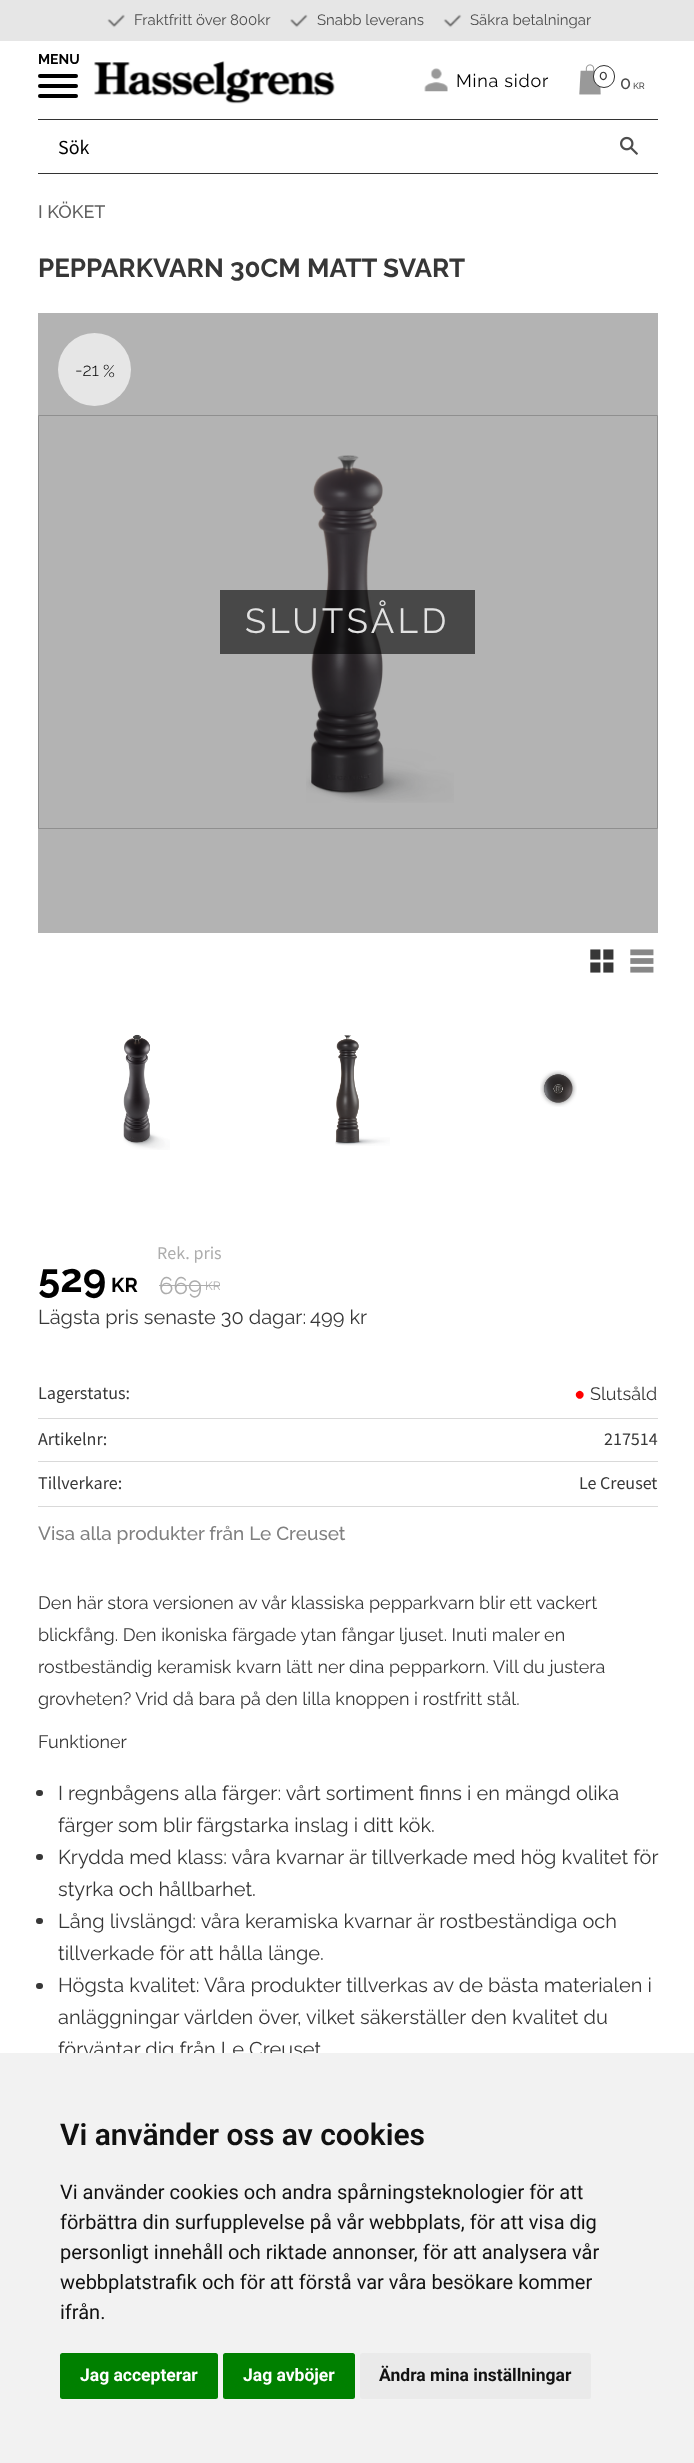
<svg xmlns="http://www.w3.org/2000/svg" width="694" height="2463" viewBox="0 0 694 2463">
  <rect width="100%" height="100%" fill="#fff"/>
  <path d="M38 313h620v620H38z" fill="#b3b3b3"/>
  <path d="M0 0h694v41H0z" fill="#e6e6e6"/>
  <image x="107" y="14" width="18" height="14" href="img/1.png"/>
  <image x="290" y="14" width="18" height="14" href="img/2.png"/>
  <image x="443" y="14" width="19" height="14" href="img/3.png"/>
  <image x="94" y="61" width="241" height="43" href="img/4.png"/>
  <image x="424" y="68" width="24" height="24" href="img/5.png"/>
  <image x="579" y="64" width="22" height="31" href="img/6.png"/>
  <rect x="593.5" y="65.5" width="21" height="22" rx="10.5" fill="#fff" stroke="#333"/>
  <path d="M38 119h620v1H38z" fill="#333"/>
  <path d="M38 173h620v1H38z" fill="#333"/>
  <image x="620" y="136" width="18" height="19" href="img/7.png"/>
  <rect x="38" y="84" width="40" height="4" rx="2" fill="#000"/>
  <rect x="38" y="74" width="40" height="4" rx="2" fill="#000"/>
  <rect x="38" y="94" width="40" height="4" rx="2" fill="#000"/>
  <circle cx="94.5" cy="369.5" r="36.5" fill="#e6e6e6"/>
  <path d="M38.5 415.5h619v413H38.5z" fill="none" stroke="#8f8f8f"/>
  <image x="306" y="455" width="148" height="348" href="img/8.png"/>
  <path d="M220 590h255v64H220z" fill="#00000099"/>
  <image x="590" y="949" width="24" height="24" href="img/9.png"/>
  <image x="630" y="949" width="24" height="24" href="img/10.png"/>
  <image x="123" y="1034" width="47" height="116" href="img/11.png"/>
  <image x="335" y="1035" width="55" height="111" href="img/12.png"/>
  <image x="540" y="1070" width="37" height="37" href="img/13.png"/>
  <path d="M159 1285h42v1H159z" fill="#adadad"/>
  <path d="M201 1285h19v1H201z" fill="#adadad"/>
  <path d="M38 1418h620v1H38z" fill="#d9d9d9"/>
  <path d="M38 1461h620v1H38z" fill="#d9d9d9"/>
  <path d="M38 1506h620v1H38z" fill="#d9d9d9"/>
  <rect x="36" y="1790" width="7" height="6" rx="3" fill="#373737"/>
  <rect x="36" y="1854" width="7" height="6" rx="3" fill="#373737"/>
  <rect x="36" y="1918" width="7" height="6" rx="3" fill="#373737"/>
  <rect x="36" y="1983" width="7" height="6" rx="3" fill="#373737"/>
  <g font-family="Raleway" font-size="15" fill="#4d4d4d">
    <text x="134" y="25">Fraktfritt över 800kr</text>
    <text x="317" y="25">Snabb leverans</text>
    <text x="470" y="25">Säkra betalningar</text>
  </g>
  <text x="456" y="87" font-family="Raleway" font-size="18" letter-spacing="0.75" fill="#000">Mina sidor</text>
  <text x="599" y="80" font-family="Raleway" font-size="14" font-weight="500" fill="#373737">0</text>
  <text x="620" y="89" font-family="Raleway" font-size="18" font-weight="500" fill="#4d4d4d">0</text>
  <text x="633" y="89" font-family="Raleway" font-size="9" font-weight="500" fill="#4d4d4d">KR</text>
  <text x="58" y="154" font-family="Source Sans Pro" font-size="20" fill="#000">Sök</text>
  <text x="38" y="64" font-family="Raleway" font-size="14" font-weight="bold" fill="#000">MENU</text>
  <text x="38" y="218" font-family="Raleway" font-size="18" font-weight="500" fill="#5f5f5f">I KÖKET</text>
  <text x="38" y="277" font-family="Raleway" font-size="26" font-weight="bold" fill="#373737">PEPPARKVARN 30CM MATT SVART</text>
  <text x="75" y="376" font-family="Raleway" font-size="18" font-weight="300" fill="#000">-21</text>
  <text x="103" y="377" font-family="Raleway" font-size="17" font-weight="300" fill="#000">%</text>
  <text x="245" y="633" font-family="Raleway" font-size="34.75" letter-spacing="3.5" fill="#e2e2e2">SLUTSÅLD</text>
  <text x="38" y="1292" font-family="Raleway" font-size="40" font-weight="bold" fill="#000">529</text>
  <text x="111" y="1292" font-family="Raleway" font-size="20" font-weight="bold" fill="#000">KR</text>
  <text x="157" y="1259" font-family="Source Sans Pro" font-size="18" fill="#adadad">Rek. pris</text>
  <text x="159" y="1294" font-family="Raleway" font-size="24" fill="#adadad">669</text>
  <text x="205" y="1290" font-family="Raleway" font-size="12" fill="#adadad">KR</text>
  <g font-family="Raleway" font-size="20" fill="#373737">
    <text x="38" y="1324">Lägsta pris senaste 30 dagar:</text>
    <text x="310" y="1324">499 kr</text>
  </g>
  <text x="38" y="1399" font-family="Source Sans Pro" font-size="18" fill="#373737">Lagerstatus:</text>
  <text x="572" y="1410" font-family="Raleway" font-size="44" fill="#f00">•</text>
  <text x="590" y="1400" font-family="Raleway" font-size="18" fill="#373737">Slutsåld</text>
  <g font-family="Source Sans Pro" font-size="18" fill="#373737">
    <text x="38" y="1445">Artikelnr:</text>
    <text x="604" y="1445">217514</text>
    <text x="38" y="1489">Tillverkare:</text>
    <text x="579" y="1489">Le Creuset</text>
  </g>
  <text x="38" y="1540" font-family="Raleway" font-size="19" font-weight="500" fill="#808080">Visa alla produkter från Le Creuset</text>
  <g font-family="Raleway" font-size="18" fill="#373737">
    <text x="38" y="1609">Den här stora versionen av vår klassiska pepparkvarn blir ett vackert</text>
    <text x="38" y="1641">blickfång. Den ikoniska färgade ytan fångar ljuset. Inuti maler en</text>
    <text x="38" y="1673">rostbeständig keramisk kvarn lätt ner dina pepparkorn. Vill du justera</text>
    <text x="38" y="1705">grovheten? Vrid då bara på den lilla knoppen i rostfritt stål.</text>
    <text x="38" y="1748">Funktioner</text>
  </g>
  <g font-family="Raleway" font-size="20" fill="#373737">
    <text x="58" y="1800">I regnbågens alla färger: vårt sortiment finns i en mängd olika</text>
    <text x="58" y="1832">färger som blir färgstarka inslag i ditt kök.</text>
    <text x="58" y="1864">Krydda med klass: våra kvarnar är tillverkade med hög kvalitet för</text>
    <text x="58" y="1896">styrka och hållbarhet.</text>
    <text x="58" y="1928">Lång livslängd: våra keramiska kvarnar är rostbeständiga och</text>
    <text x="58" y="1960">tillverkade för att hålla länge.</text>
    <text x="58" y="1992">Högsta kvalitet: Våra produkter tillverkas av de bästa materialen i</text>
    <text x="58" y="2024">anläggningar världen över, vilket säkerställer den kvalitet du</text>
    <text x="58" y="2056">förväntar dig från Le Creuset</text>
  </g>
  <path d="M0 2053h694v410H0z" fill="#f2f2f2"/>
  <text x="60" y="2145" font-family="Roboto" font-size="30" font-weight="600" fill="#111">Vi använder oss av cookies</text>
  <g font-family="Roboto" font-size="20" fill="#111">
    <text x="60" y="2199">Vi använder cookies och andra spårningsteknologier för att</text>
    <text x="60" y="2229">förbättra din surfupplevelse på vår webbplats, för att visa dig</text>
    <text x="60" y="2259">personligt innehåll och riktade annonser, för att analysera vår</text>
    <text x="60" y="2289">webbplatstrafik och för att förstå var våra besökare kommer</text>
    <text x="60" y="2319">ifrån.</text>
  </g>
  <rect x="60" y="2353" width="158" height="46" rx="2.5" fill="#008000"/>
  <text x="80" y="2381" font-family="Roboto" font-size="17.5" font-weight="bold" fill="#fff">Jag accepterar</text>
  <rect x="223" y="2353" width="132" height="46" rx="2.5" fill="#008000"/>
  <text x="243" y="2381" font-family="Roboto" font-size="17.5" font-weight="bold" fill="#fff">Jag avböjer</text>
  <rect x="360" y="2353" width="231" height="46" rx="2.5" fill="#eaeaea"/>
  <text x="379" y="2381" font-family="Roboto" font-size="17.5" font-weight="bold" fill="#111">Ändra mina inställningar</text>
</svg>
